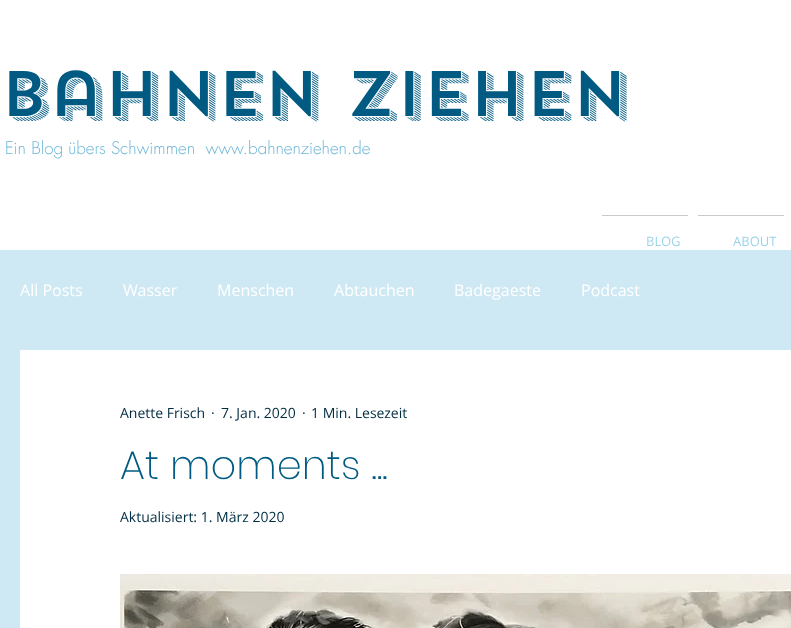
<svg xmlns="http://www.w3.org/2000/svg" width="791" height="628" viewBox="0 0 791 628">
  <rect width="100%" height="100%" fill="#fff"/>
  <path d="M602 215h86v1H602z" fill="#cacaca"/>
  <path d="M698 215h86v1H698z" fill="#cacaca"/>
  <path d="M0 250h791v378H0z" fill="#cfe9f4"/>
  <path d="M20 350h771v278H20z" fill="#fff"/>
  <image x="120" y="574" width="671" height="54" href="img/1.png"/>
  <text x="0" y="116" font-family="'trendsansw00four'" font-size="64" font-weight="500" fill="#005a81">bahnen ziehen</text>
  <text x="5" y="154" font-family="futura" font-size="17" font-weight="300" fill="#6bb6d6" xml:space="preserve">Ein Blog übers Schwimmen  www.bahnenziehen.de</text>
  <g font-family="Open Sans" font-size="13" fill="#9cd3eb">
    <text x="646" y="246">BLOG</text>
    <text x="733" y="246">ABOUT</text>
  </g>
  <g font-family="Open Sans" font-size="16" fill="#fff">
    <text x="20" y="296">All Posts</text>
    <text x="123" y="296">Wasser</text>
    <text x="217" y="296">Menschen</text>
    <text x="334" y="296">Abtauchen</text>
    <text x="454" y="296">Badegaeste</text>
    <text x="581" y="296">Podcast</text>
  </g>
  <g font-family="Open Sans" font-size="14" fill="#002d41">
    <text x="120" y="418">Anette Frisch</text>
    <text x="211" y="418">·</text>
    <text x="221" y="418">7. Jan. 2020</text>
    <text x="302" y="418">·</text>
    <text x="311" y="418">1 Min. Lesezeit</text>
  </g>
  <text x="120" y="479" font-family="Poppins" font-size="40" font-weight="200" fill="#005a81">At moments ...</text>
  <text x="120" y="522" font-family="Open Sans" font-size="14" fill="#002d41">Aktualisiert: 1. März 2020</text>
</svg>
